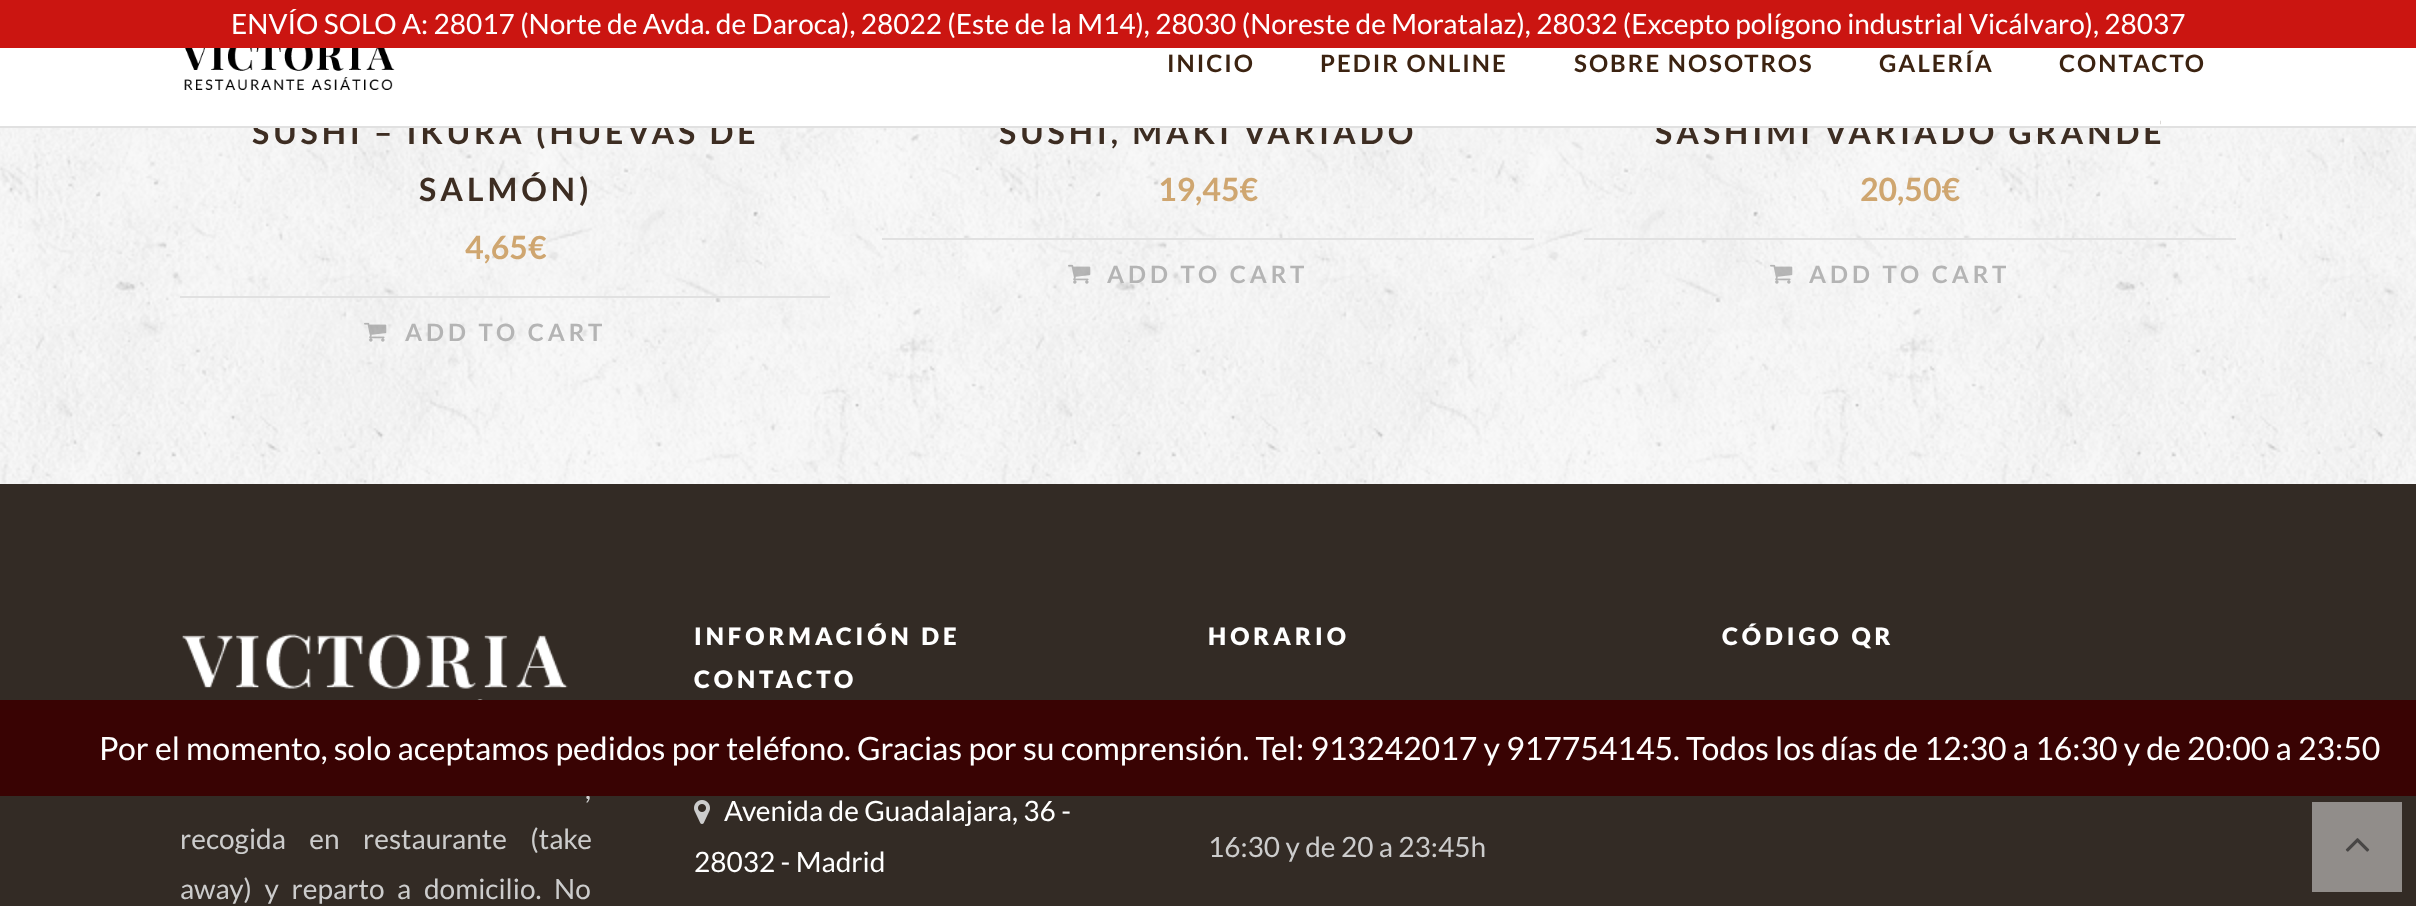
<svg xmlns="http://www.w3.org/2000/svg" width="2416" height="906" viewBox="0 0 2416 906">
  <rect width="100%" height="100%" fill="#fff"/>
  <image x="0" y="128" width="2416" height="356" href="img/1.png"/>
  <path d="M0 0h2416v48H0z" fill="#cb1511"/>
  <image x="184" y="48" width="211" height="42" href="img/2.png"/>
  <path d="M180 296h650v2H180z" fill="#e1e1e1"/>
  <image x="364" y="322" width="23" height="20" href="img/3.png"/>
  <path d="M882 238h652v2H882z" fill="#e1e1e1"/>
  <image x="1068" y="264" width="23" height="20" href="img/4.png"/>
  <path d="M1584 238h652v2H1584z" fill="#e1e1e1"/>
  <image x="1770" y="264" width="23" height="20" href="img/5.png"/>
  <path d="M0 484h2416v422H0z" fill="#332b25"/>
  <image x="182" y="634" width="386" height="66" href="img/6.png"/>
  <image x="694" y="800" width="16" height="24" href="img/7.png"/>
  <path d="M2312 802h90v90H2312z" fill="#918d8a"/>
  <image x="2345" y="838" width="25" height="14" href="img/8.png"/>
  <text x="231" y="34" font-family="Lato" font-size="28" fill="#fff">ENVÍO SOLO A: 28017 (Norte de Avda. de Daroca), 28022 (Este de la M14), 28030 (Noreste de Moratalaz), 28032 (Excepto polígono industrial Vicálvaro), 28037</text>
  <g font-family="Lato" font-size="24" font-weight="bold" letter-spacing="2" fill="#3c2311">
    <text x="1167" y="72">INICIO</text>
    <text x="1320" y="72">PEDIR ONLINE</text>
    <text x="1574" y="72">SOBRE NOSOTROS</text>
    <text x="1879" y="72">GALERÍA</text>
    <text x="2059" y="72">CONTACTO</text>
  </g>
  <g font-family="Lato" font-size="32" font-weight="bold" letter-spacing="4" fill="#3d2d22">
    <text x="252" y="144">SUSHI – IKURA (HUEVAS DE</text>
    <text x="419" y="201">SALMÓN)</text>
  </g>
  <text x="465" y="259" font-family="Lato" font-size="32" font-weight="bold" fill="#cfa670">4,65€</text>
  <text x="405" y="341" font-family="Lato" font-size="24" font-weight="bold" letter-spacing="4" fill="#b4b4b4">ADD TO CART</text>
  <text x="999" y="144" font-family="Lato" font-size="32" font-weight="bold" letter-spacing="4" fill="#3d2d22">SUSHI, MAKI VARIADO</text>
  <text x="1158" y="201" font-family="Lato" font-size="32" font-weight="bold" fill="#cfa670">19,45€</text>
  <text x="1107" y="283" font-family="Lato" font-size="24" font-weight="bold" letter-spacing="4" fill="#b4b4b4">ADD TO CART</text>
  <text x="1655" y="144" font-family="Lato" font-size="32" font-weight="bold" letter-spacing="4" fill="#3d2d22">SASHIMI VARIADO GRANDE</text>
  <path d="M0 126h2416v2H0z" fill="#e1e1e1"/>
  <path d="M253 118h1907v8H253z" fill="#fff"/>
  <text x="1860" y="201" font-family="Lato" font-size="32" font-weight="bold" fill="#cfa670">20,50€</text>
  <text x="1809" y="283" font-family="Lato" font-size="24" font-weight="bold" letter-spacing="4" fill="#b4b4b4">ADD TO CART</text>
  <g font-family="Lato" font-size="28" fill="#ccc">
    <text x="585" y="799" word-spacing="8">,</text>
    <text x="180" y="849" word-spacing="18">recogida en restaurante (take</text>
    <text x="180" y="899" word-spacing="7.25">away) y reparto a domicilio. No</text>
  </g>
  <g font-family="Lato" font-size="24" font-weight="900" letter-spacing="4" fill="#fff">
    <text x="694" y="645">INFORMACIÓN DE</text>
    <text x="694" y="688">CONTACTO</text>
  </g>
  <g font-family="Lato" font-size="28" fill="#fff">
    <text x="724" y="821">Avenida de Guadalajara, 36 -</text>
    <text x="694" y="872">28032 - Madrid</text>
  </g>
  <text x="1208" y="645" font-family="Lato" font-size="24" font-weight="900" letter-spacing="4" fill="#fff">HORARIO</text>
  <text x="1208" y="857" font-family="Lato" font-size="28" fill="#ccc">16:30 y de 20 a 23:45h</text>
  <text x="1722" y="645" font-family="Lato" font-size="24" font-weight="900" letter-spacing="4" fill="#fff">CÓDIGO QR</text>
  <path d="M0 700h2416v96H0z" fill="#390303"/>
  <text x="99" y="760" font-family="Lato" font-size="32" fill="#fff">Por el momento, solo aceptamos pedidos por teléfono. Gracias por su comprensión. Tel: 913242017 y 917754145. Todos los días de 12:30 a 16:30 y de 20:00 a 23:50</text>
</svg>
